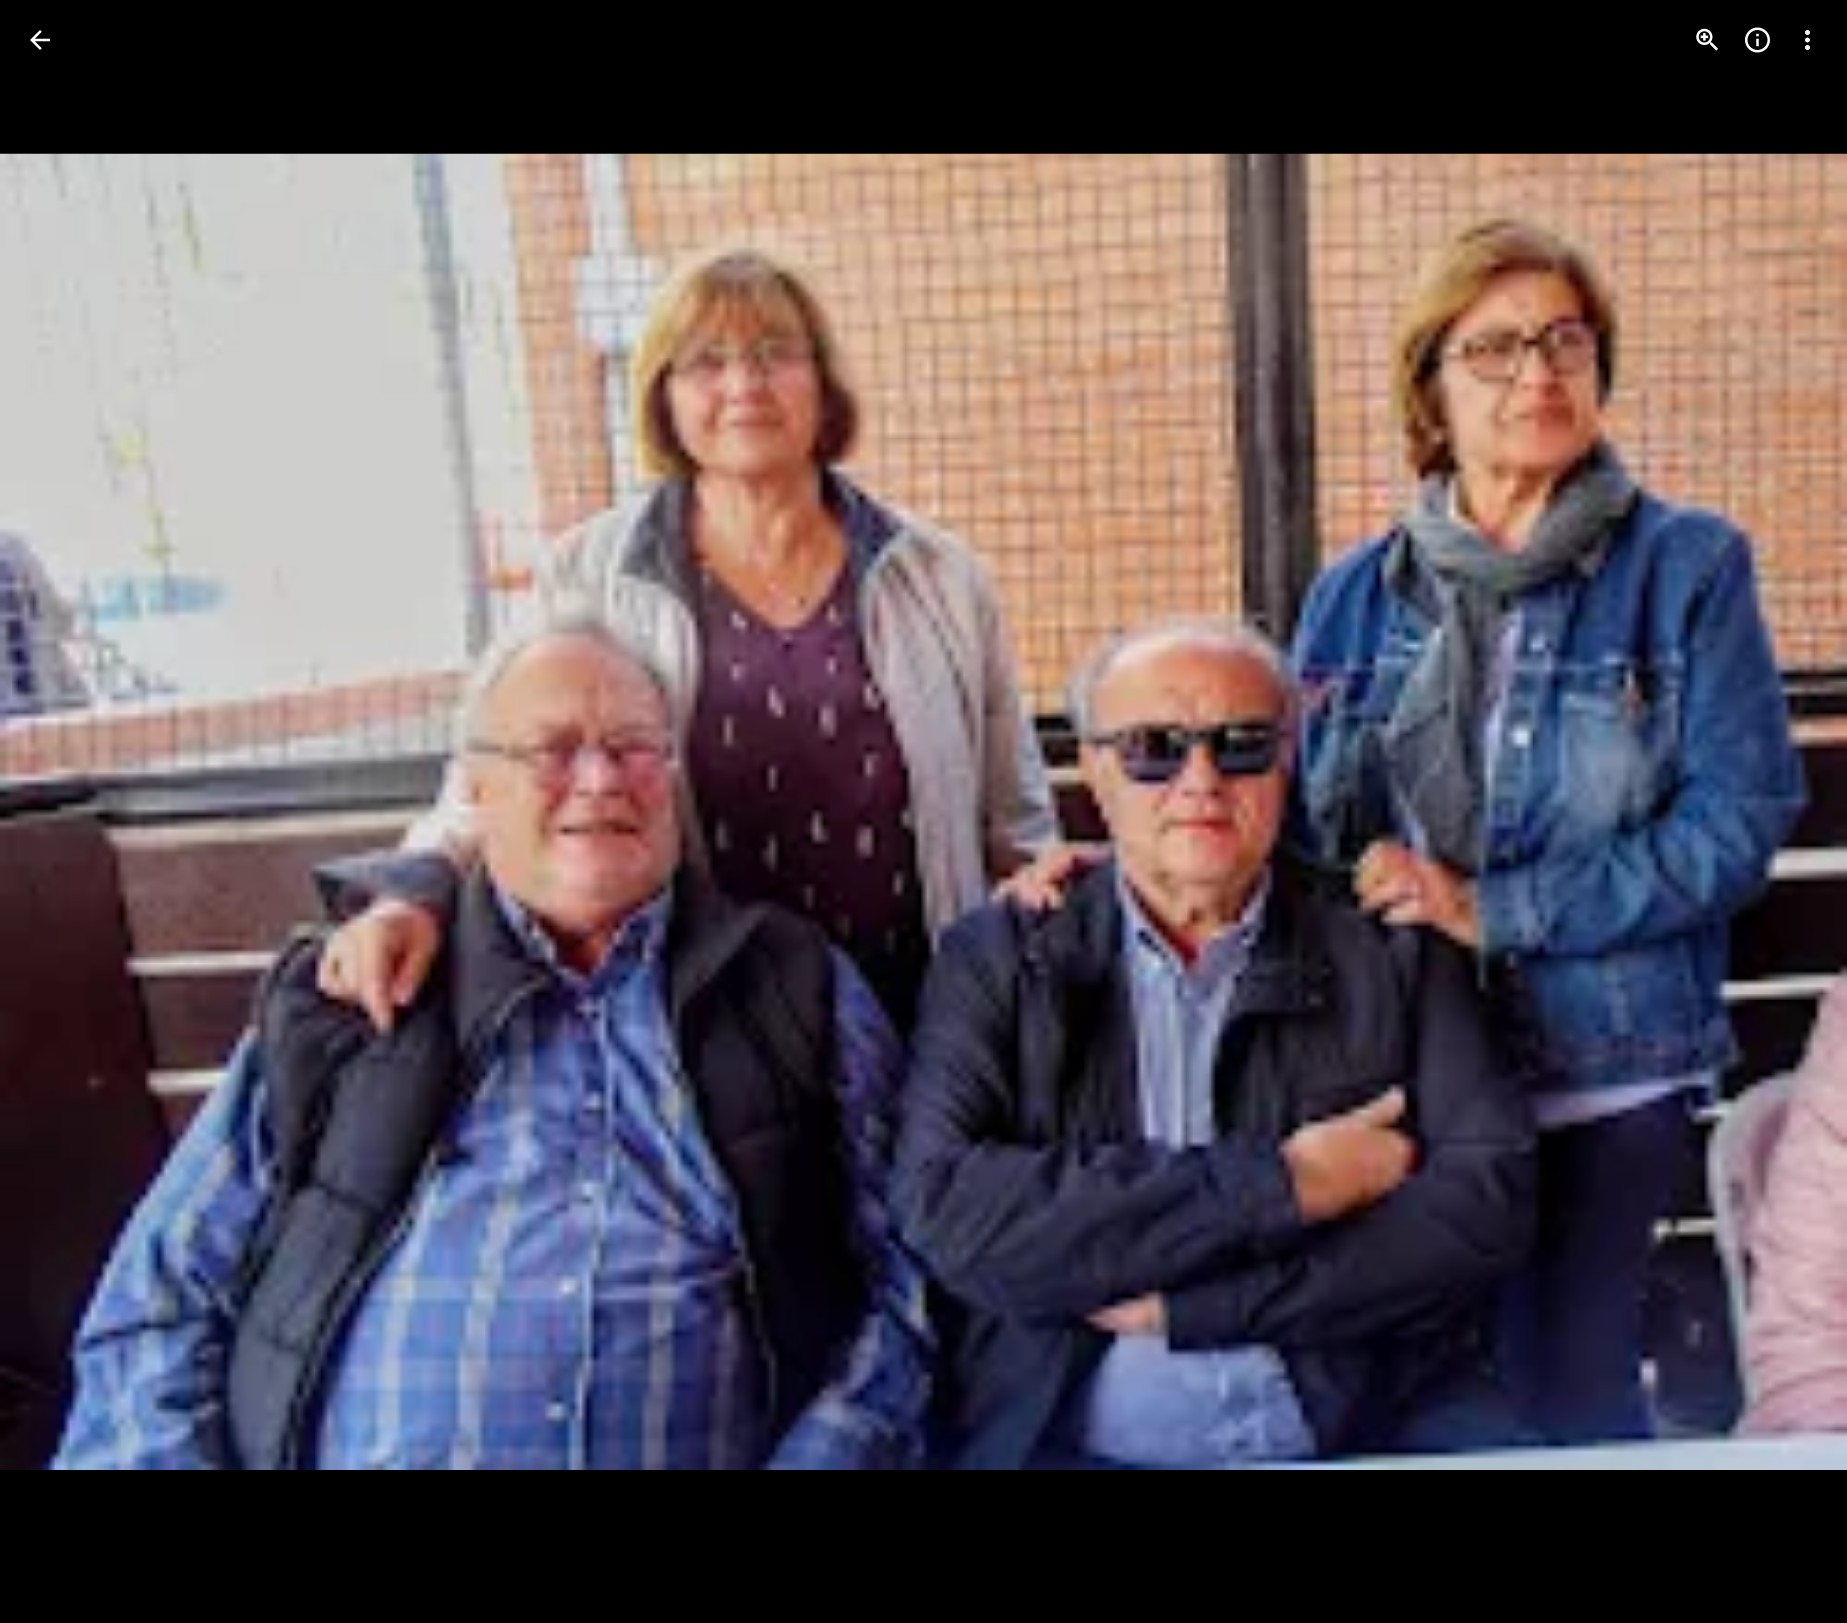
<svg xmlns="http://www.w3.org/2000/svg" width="1847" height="1623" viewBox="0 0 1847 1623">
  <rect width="100%" height="100%" fill="#000"/>
  <image x="30" y="30" width="20" height="20" href="img/1.png"/>
  <image x="1696" y="28" width="22" height="23" href="img/2.png"/>
  <image x="1745" y="27" width="25" height="26" href="img/3.png"/>
  <image x="1805" y="30" width="5" height="20" href="img/4.png"/>
  <image x="0" y="153" width="1847" height="1317" href="img/5.png"/>
</svg>
